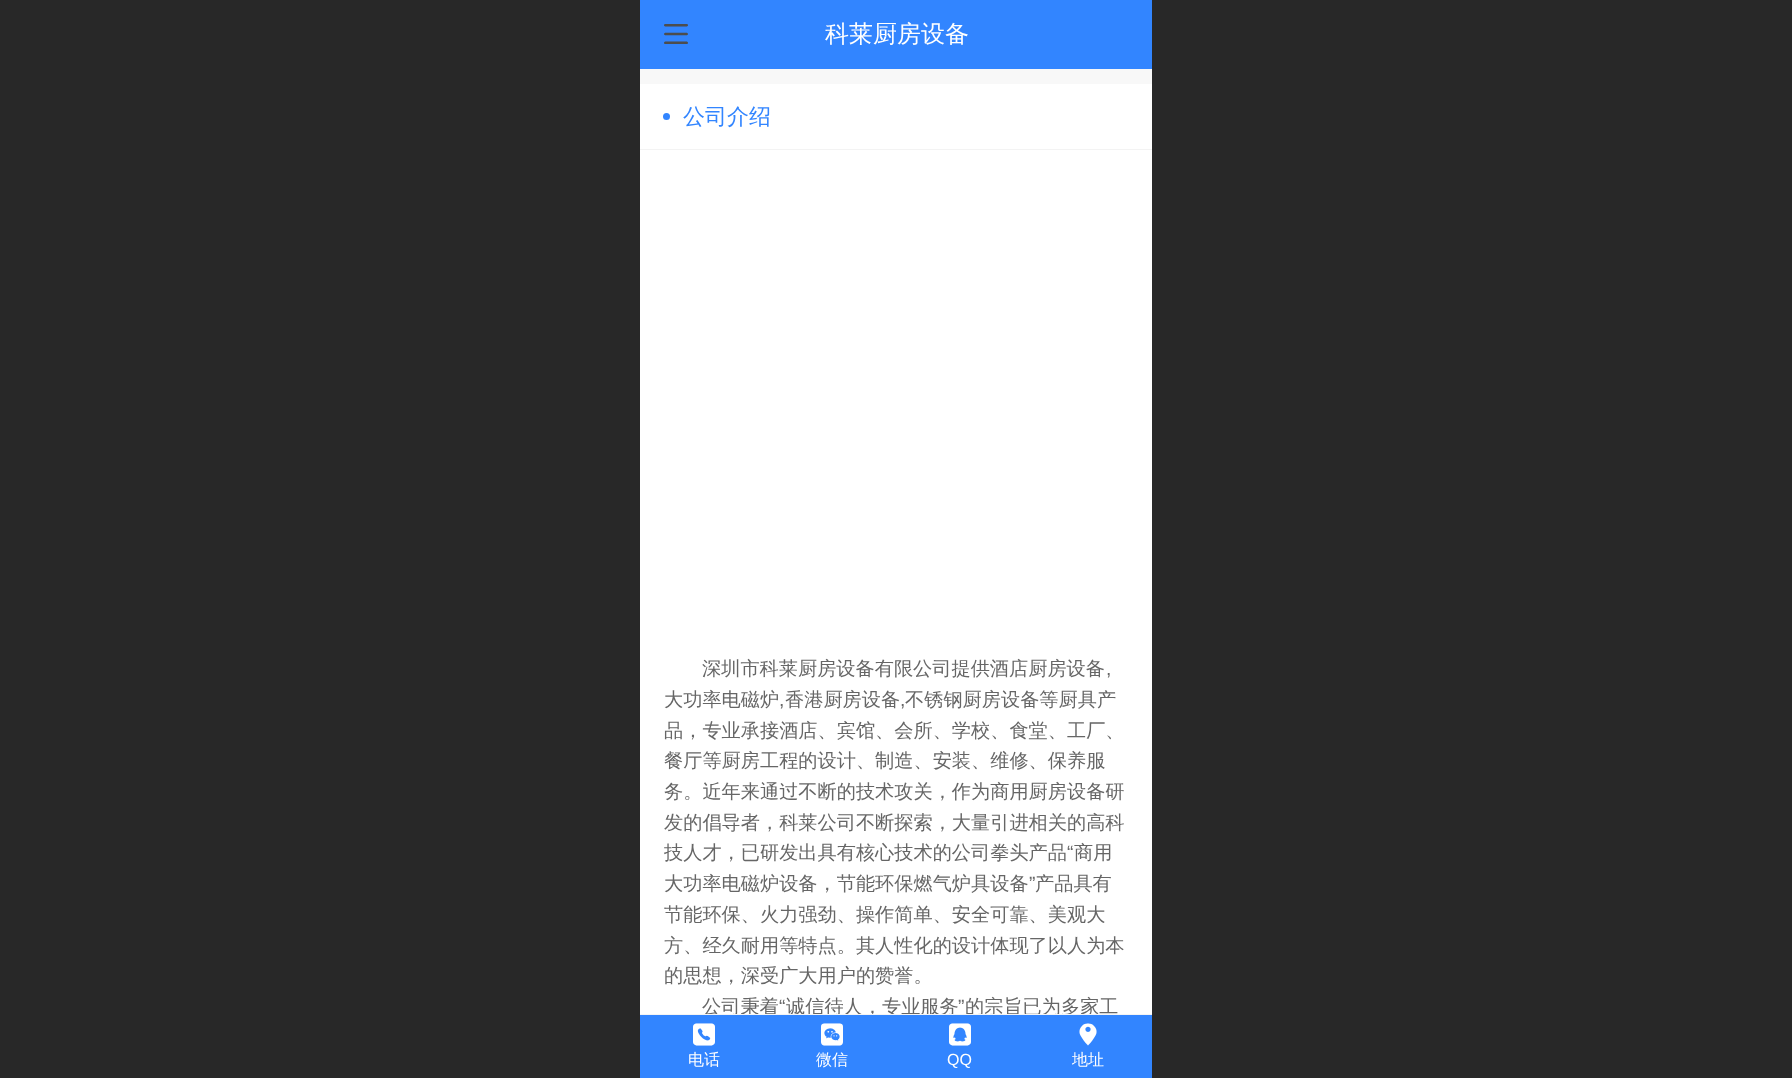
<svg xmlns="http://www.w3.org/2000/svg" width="1792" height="1078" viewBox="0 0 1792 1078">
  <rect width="100%" height="100%" fill="#f8f8f8"/>
  <path d="M0 0h640v1078H0z" fill="#282828"/>
  <path d="M640 0h512v69H640z" fill="#3285ff"/>
  <path d="M640 84h512v65H640z" fill="#fff"/>
  <path d="M640 149h512v1H640z" fill="#f3f3f3"/>
  <circle cx="666.5" cy="116.5" r="3.5" fill="#3285ff"/>
  <path d="M640 150h512v864H640z" fill="#fff"/>
  <path d="M1152 0h640v1078H1152z" fill="#282828"/>
  <text x="664" y="44" font-family="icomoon" font-size="24" fill="#4d4d4d">򰌲</text>
  <text x="825" y="42" font-family="WenQuanYi Zen Hei" font-size="24" font-weight="500" fill="#fff">科莱厨房设备</text>
  <text x="683" y="124" font-family="WenQuanYi Zen Hei" font-size="22" font-weight="500" fill="#3285ff">公司介绍</text>
  <text x="702" y="675" font-family="WenQuanYi Zen Hei" font-size="19.2" font-weight="500" fill="#666">深圳市科莱厨房设备有限公司提供酒店厨房设备</text>
  <text x="1106" y="675" font-family="Liberation Sans" font-size="19.2" fill="#666">,</text>
  <text x="664" y="706" font-family="WenQuanYi Zen Hei" font-size="19.2" font-weight="500" fill="#666">大功率电磁炉</text>
  <text x="779" y="706" font-family="Liberation Sans" font-size="19.2" fill="#666">,</text>
  <text x="785" y="706" font-family="WenQuanYi Zen Hei" font-size="19.2" font-weight="500" fill="#666">香港厨房设备</text>
  <text x="900" y="706" font-family="Liberation Sans" font-size="19.2" fill="#666">,</text>
  <g font-family="WenQuanYi Zen Hei" font-size="19.2" font-weight="500" fill="#666">
    <text x="905" y="706">不锈钢厨房设备等厨具产</text>
    <text x="664" y="737">品，专业承接酒店、宾馆、会所、学校、食堂、工厂、</text>
    <text x="664" y="767">餐厅等厨房工程的设计、制造、安装、维修、保养服</text>
    <text x="664" y="798">务。近年来通过不断的技术攻关，作为商用厨房设备研</text>
    <text x="664" y="829">发的倡导者，科莱公司不断探索，大量引进相关的高科</text>
    <text x="664" y="859">技人才，已研发出具有核心技术的公司拳头产品</text>
  </g>
  <text x="1067" y="859" font-family="Liberation Sans" font-size="19.2" fill="#666">“</text>
  <g font-family="WenQuanYi Zen Hei" font-size="19.2" font-weight="500" fill="#666">
    <text x="1074" y="859">商用</text>
    <text x="664" y="890">大功率电磁炉设备，节能环保燃气炉具设备</text>
  </g>
  <text x="1029" y="890" font-family="Liberation Sans" font-size="19.2" fill="#666">”</text>
  <g font-family="WenQuanYi Zen Hei" font-size="19.2" font-weight="500" fill="#666">
    <text x="1035" y="890">产品具有</text>
    <text x="664" y="921">节能环保、火力强劲、操作简单、安全可靠、美观大</text>
    <text x="664" y="952">方、经久耐用等特点。其人性化的设计体现了以人为本</text>
    <text x="664" y="982">的思想，深受广大用户的赞誉。</text>
    <text x="702" y="1013">公司秉着</text>
  </g>
  <text x="779" y="1013" font-family="Liberation Sans" font-size="19.2" fill="#666">“</text>
  <text x="786" y="1013" font-family="WenQuanYi Zen Hei" font-size="19.2" font-weight="500" fill="#666">诚信待人，专业服务</text>
  <text x="958" y="1013" font-family="Liberation Sans" font-size="19.2" fill="#666">”</text>
  <text x="965" y="1013" font-family="WenQuanYi Zen Hei" font-size="19.2" font-weight="500" fill="#666">的宗旨已为多家工</text>
  <path d="M640 1015h512v63H640z" fill="#3285ff"/>
  <path d="M640 1014h512v1H640z" fill="#f4f4f4"/>
  <text x="693" y="1044" font-family="icomoon" font-size="22" fill="#fff">򠤧</text>
  <text x="688" y="1065" font-family="WenQuanYi Zen Hei" font-size="16" font-weight="500" fill="#fff">电话</text>
  <text x="821" y="1044" font-family="icomoon" font-size="22" fill="#fff">򠤰</text>
  <text x="816" y="1065" font-family="WenQuanYi Zen Hei" font-size="16" font-weight="500" fill="#fff">微信</text>
  <text x="949" y="1044" font-family="icomoon" font-size="22" fill="#fff">򠤨</text>
  <text x="947" y="1065" font-family="Liberation Sans" font-size="16" fill="#fff">QQ</text>
  <text x="1077" y="1044" font-family="icomoon" font-size="22" fill="#fff">򡁷</text>
  <text x="1072" y="1065" font-family="WenQuanYi Zen Hei" font-size="16" font-weight="500" fill="#fff">地址</text>
</svg>
